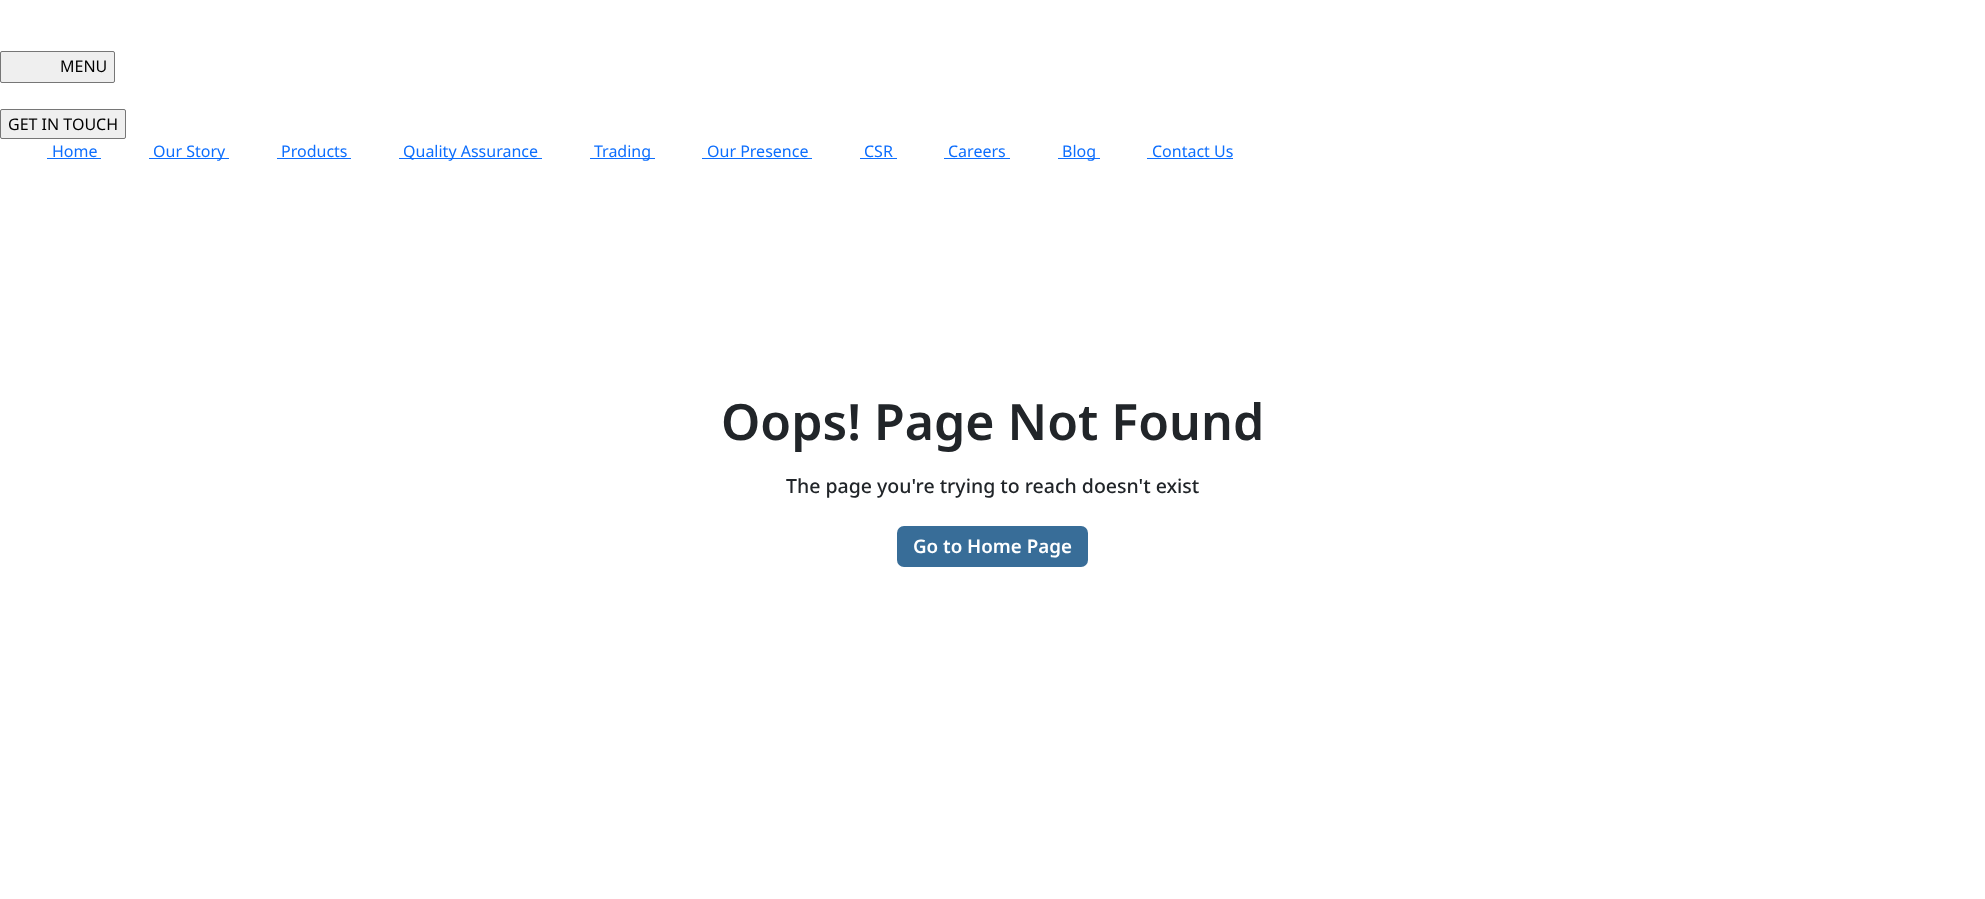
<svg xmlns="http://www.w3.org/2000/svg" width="1985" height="899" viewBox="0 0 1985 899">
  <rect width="100%" height="100%" fill="#fff"/>
  <rect x="0.5" y="51.5" width="114" height="31" rx="1.5" fill="#efefef" stroke="#767676"/>
  <rect x="0.5" y="109.5" width="125" height="29" rx="1.5" fill="#efefef" stroke="#767676"/>
  <path d="M47 158h54v1H47z" fill="#0d6efd"/>
  <path d="M149 158h80v1H149z" fill="#0d6efd"/>
  <path d="M277 158h74v1H277z" fill="#0d6efd"/>
  <path d="M399 158h143v1H399z" fill="#0d6efd"/>
  <path d="M590 158h65v1H590z" fill="#0d6efd"/>
  <path d="M702 158h110v1H702z" fill="#0d6efd"/>
  <path d="M860 158h37v1H860z" fill="#0d6efd"/>
  <path d="M944 158h66v1H944z" fill="#0d6efd"/>
  <path d="M1058 158h42v1H1058z" fill="#0d6efd"/>
  <path d="M1147 158h86v1H1147z" fill="#0d6efd"/>
  <rect x="897" y="526" width="191" height="41" rx="7" fill="#386d98"/>
  <g font-family="Noto Sans" font-size="16" fill="#000">
    <text x="60" y="72">MENU</text>
    <text x="8" y="130">GET IN TOUCH</text>
  </g>
  <g font-family="Noto Sans" font-size="16" fill="#0d6efd">
    <text x="52" y="157">Home</text>
    <text x="153" y="157">Our Story</text>
    <text x="281" y="157">Products</text>
    <text x="403" y="157">Quality Assurance</text>
    <text x="594" y="157">Trading</text>
    <text x="707" y="157">Our Presence</text>
    <text x="864" y="157">CSR</text>
    <text x="948" y="157">Careers</text>
    <text x="1062" y="157">Blog</text>
    <text x="1152" y="157">Contact Us</text>
  </g>
  <text x="721" y="440" font-family="Noto Sans" font-size="50" font-weight="600" fill="#212529">Oops! Page Not Found</text>
  <text x="786" y="493" font-family="Noto Sans" font-size="19.5" font-weight="500" fill="#212529">The page you're trying to reach doesn't exist</text>
  <text x="913" y="553" font-family="Noto Sans" font-size="18.75" font-weight="600" fill="#fff">Go to Home Page</text>
</svg>
